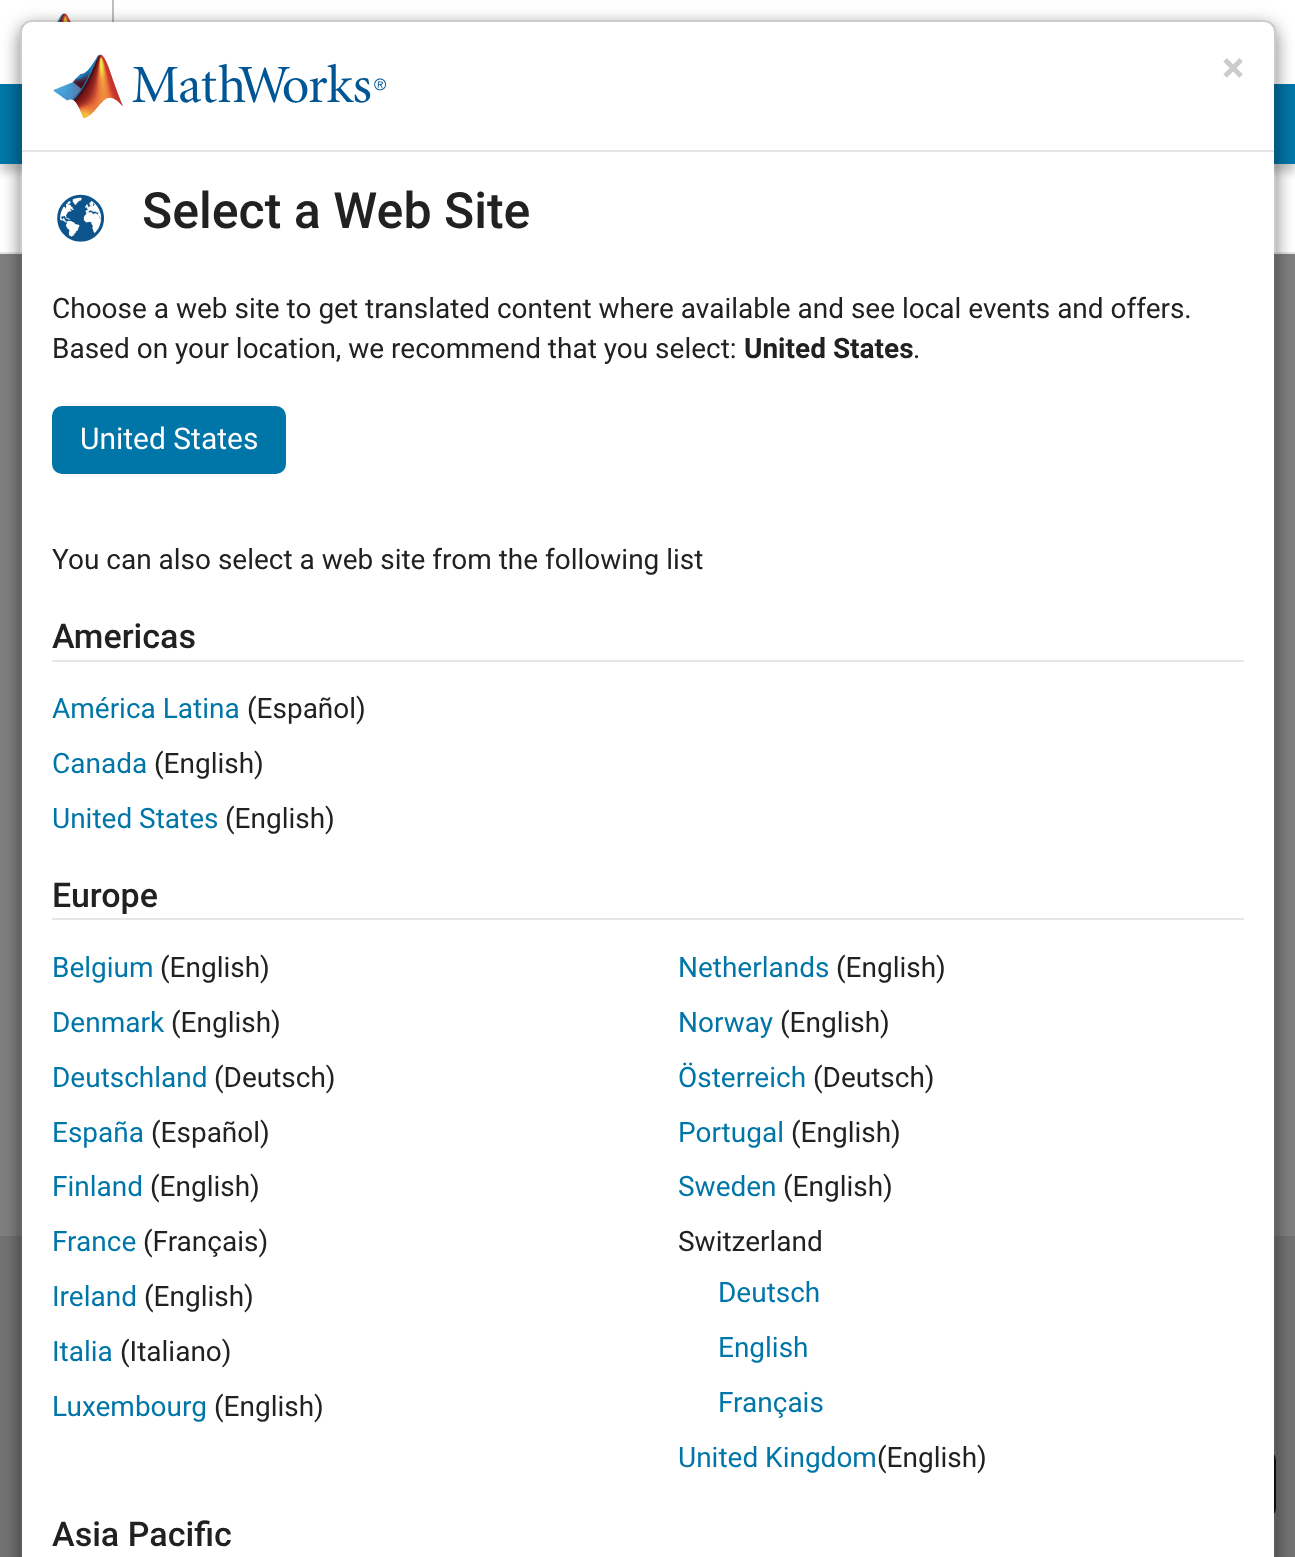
<svg xmlns="http://www.w3.org/2000/svg" width="1295" height="1557" viewBox="0 0 1295 1557">
  <defs>
    <clipPath id="clip1"><path d="M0 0H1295V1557H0ZM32 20H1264C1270.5 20 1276 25.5 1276 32V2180C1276 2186.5 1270.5 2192 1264 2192H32C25.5 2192 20 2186.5 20 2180V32C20 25.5 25.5 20 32 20Z" clip-rule="evenodd"/></clipPath>
  </defs>
  <rect width="100%" height="100%" fill="#737373"/>
  <path d="M0 0h1295v84H0z" fill="#fff"/>
  <path d="M112 0h2v22H112z" fill="#bfbfbf"/>
  <image x="56" y="13" width="15" height="9" href="img/1.png"/>
  <path d="M0 164h1295v88H0z" fill="#fff"/>
  <path d="M0 92h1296v80H0z" fill="#00000033" filter="blur(4px)"/>
  <path d="M0 84h22v80H0z" fill="#0076a8"/>
  <path d="M1274 84h21v80H1274z" fill="#0076a8"/>
  <path d="M0 252h1295v2H0z" fill="#e6e6e6"/>
  <path d="M0 254h1295v982H0z" fill="#808080"/>
  <rect x="1073" y="1451" width="202" height="66" rx="9" fill="none" stroke="#111" stroke-width="2"/>
  <g clip-path="url(#clip1)">
    <rect x="20" y="26" width="1256" height="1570" rx="12" fill="#00000080" filter="blur(9px)"/>
  </g>
  <path d="M32 22H1264C1269.5 22 1274 26.5 1274 32V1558H22V32C22 26.5 26.5 22 32 22Z" fill="#fff"/>
  <rect x="21" y="21" width="1254" height="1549" rx="11" fill="none" stroke="#00000033" stroke-width="2"/>
  <path d="M22 150h1252v2H22z" fill="#e5e5e5"/>
  <image x="53" y="54" width="333" height="65" href="img/2.png"/>
  <image x="57" y="194" width="47" height="48" href="img/3.png"/>
  <rect x="52" y="406" width="234" height="68" rx="10" fill="#0076a8"/>
  <path d="M52 660h1192v2H52z" fill="#e6e6e6"/>
  <path d="M52 918h1192v2H52z" fill="#e6e6e6"/>
  <text x="1222" y="82" font-family="Roboto" font-size="42" font-weight="bold" fill="#ccc">×</text>
  <text x="142" y="228" font-family="Roboto" font-size="50" font-weight="500" fill="#212121">Select a Web Site</text>
  <g font-family="Roboto" font-size="28" fill="#212121">
    <text x="52" y="318">Choose a web site to get translated content where available and see local events and offers.</text>
    <text x="52" y="358">Based on your location, we recommend that you select:</text>
  </g>
  <text x="744" y="358" font-family="Roboto" font-size="28" font-weight="bold" fill="#212121">United States</text>
  <text x="913" y="358" font-family="Roboto" font-size="28" fill="#212121">.</text>
  <text x="80" y="449" font-family="Roboto" font-size="30" fill="#fff">United States</text>
  <text x="52" y="569" font-family="Roboto" font-size="28" fill="#212121">You can also select a web site from the following list</text>
  <text x="52" y="648" font-family="Roboto" font-size="34" font-weight="500" fill="#212121">Americas</text>
  <text x="52" y="718" font-family="Roboto" font-size="28" fill="#0076a8">América Latina</text>
  <text x="247" y="718" font-family="Roboto" font-size="28" fill="#212121">(Español)</text>
  <text x="52" y="773" font-family="Roboto" font-size="28" fill="#0076a8">Canada</text>
  <text x="154" y="773" font-family="Roboto" font-size="28" fill="#212121">(English)</text>
  <text x="52" y="828" font-family="Roboto" font-size="28" fill="#0076a8">United States</text>
  <text x="225" y="828" font-family="Roboto" font-size="28" fill="#212121">(English)</text>
  <text x="52" y="907" font-family="Roboto" font-size="34" font-weight="500" fill="#212121">Europe</text>
  <text x="52" y="977" font-family="Roboto" font-size="28" fill="#0076a8">Belgium</text>
  <text x="160" y="977" font-family="Roboto" font-size="28" fill="#212121">(English)</text>
  <text x="52" y="1032" font-family="Roboto" font-size="28" fill="#0076a8">Denmark</text>
  <text x="171" y="1032" font-family="Roboto" font-size="28" fill="#212121">(English)</text>
  <text x="52" y="1087" font-family="Roboto" font-size="28" fill="#0076a8">Deutschland</text>
  <text x="214" y="1087" font-family="Roboto" font-size="28" fill="#212121">(Deutsch)</text>
  <text x="52" y="1142" font-family="Roboto" font-size="28" fill="#0076a8">España</text>
  <text x="151" y="1142" font-family="Roboto" font-size="28" fill="#212121">(Español)</text>
  <text x="52" y="1196" font-family="Roboto" font-size="28" fill="#0076a8">Finland</text>
  <text x="150" y="1196" font-family="Roboto" font-size="28" fill="#212121">(English)</text>
  <text x="52" y="1251" font-family="Roboto" font-size="28" fill="#0076a8">France</text>
  <text x="143" y="1251" font-family="Roboto" font-size="28" fill="#212121">(Français)</text>
  <text x="52" y="1306" font-family="Roboto" font-size="28" fill="#0076a8">Ireland</text>
  <text x="144" y="1306" font-family="Roboto" font-size="28" fill="#212121">(English)</text>
  <text x="52" y="1361" font-family="Roboto" font-size="28" fill="#0076a8">Italia</text>
  <text x="120" y="1361" font-family="Roboto" font-size="28" fill="#212121">(Italiano)</text>
  <text x="52" y="1416" font-family="Roboto" font-size="28" fill="#0076a8">Luxembourg</text>
  <text x="214" y="1416" font-family="Roboto" font-size="28" fill="#212121">(English)</text>
  <text x="678" y="977" font-family="Roboto" font-size="28" fill="#0076a8">Netherlands</text>
  <text x="836" y="977" font-family="Roboto" font-size="28" fill="#212121">(English)</text>
  <text x="678" y="1032" font-family="Roboto" font-size="28" fill="#0076a8">Norway</text>
  <text x="780" y="1032" font-family="Roboto" font-size="28" fill="#212121">(English)</text>
  <text x="678" y="1087" font-family="Roboto" font-size="28" fill="#0076a8">Österreich</text>
  <text x="813" y="1087" font-family="Roboto" font-size="28" fill="#212121">(Deutsch)</text>
  <text x="678" y="1142" font-family="Roboto" font-size="28" fill="#0076a8">Portugal</text>
  <text x="791" y="1142" font-family="Roboto" font-size="28" fill="#212121">(English)</text>
  <text x="678" y="1196" font-family="Roboto" font-size="28" fill="#0076a8">Sweden</text>
  <g font-family="Roboto" font-size="28" fill="#212121">
    <text x="783" y="1196">(English)</text>
    <text x="678" y="1251">Switzerland</text>
  </g>
  <g font-family="Roboto" font-size="28" fill="#0076a8">
    <text x="718" y="1302">Deutsch</text>
    <text x="718" y="1357">English</text>
    <text x="718" y="1412">Français</text>
    <text x="678" y="1467">United Kingdom</text>
  </g>
  <text x="877" y="1467" font-family="Roboto" font-size="28" fill="#212121">(English)</text>
  <text x="52" y="1546" font-family="Roboto" font-size="34" font-weight="500" fill="#212121">Asia Pacific</text>
</svg>
